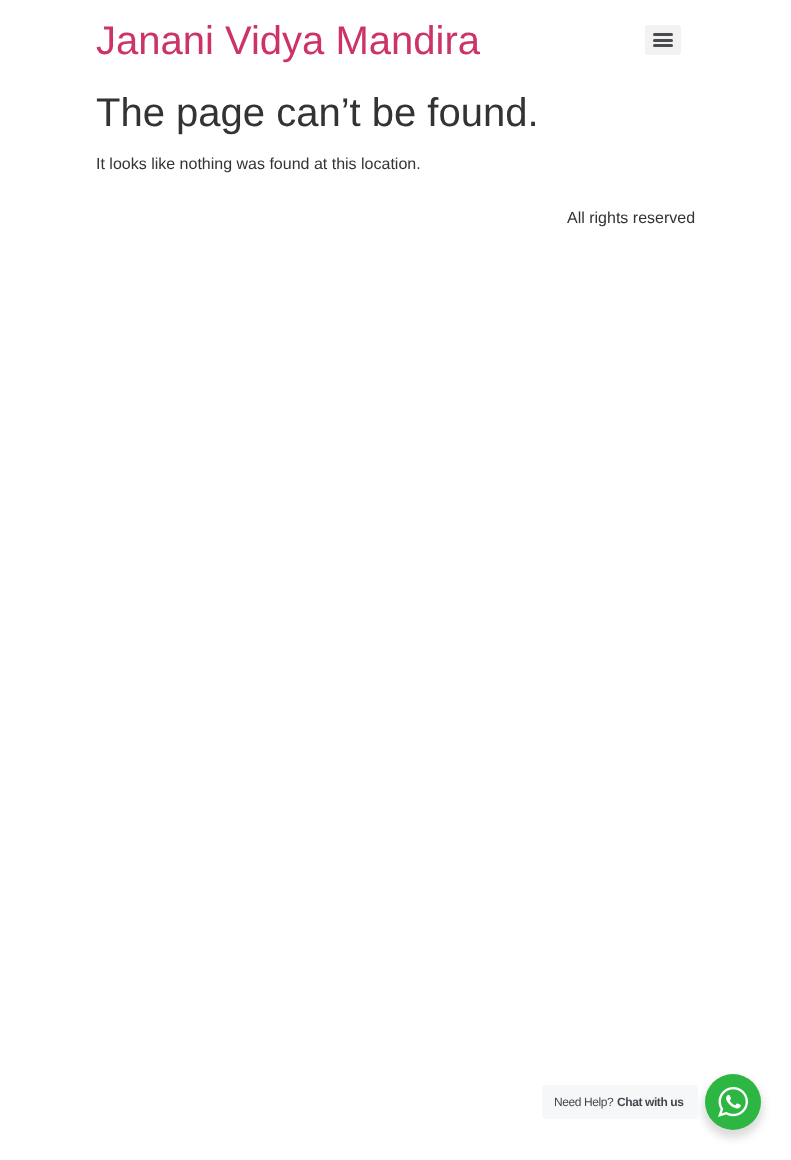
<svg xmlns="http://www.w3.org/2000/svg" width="791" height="1160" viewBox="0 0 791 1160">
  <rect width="100%" height="100%" fill="#fff"/>
  <rect x="645" y="25" width="36" height="30" rx="3" fill="#f2f2f2"/>
  <rect x="653" y="39" width="20" height="3" rx="1.5" fill="#494c4f"/>
  <rect x="653" y="33" width="20" height="3" rx="1.5" fill="#494c4f"/>
  <rect x="653" y="44" width="20" height="3" rx="1.5" fill="#494c4f"/>
  <rect x="703" y="1078" width="60" height="60" rx="30" fill="#00000024" filter="blur(4px)"/>
  <rect x="542" y="1085" width="156" height="34" rx="4" fill="#f5f7f9"/>
  <circle cx="733" cy="1102" r="28" fill="#2db742"/>
  <image x="718" y="1087" width="30" height="30" href="img/1.png"/>
  <text x="96" y="54" font-family="Liberation Sans" font-size="40" fill="#c36">Janani Vidya Mandira</text>
  <text x="96" y="126" font-family="Liberation Sans" font-size="40" fill="#333">The page can’t be found.</text>
  <g font-family="Liberation Sans" font-size="16" fill="#333">
    <text x="96" y="169">It looks like nothing was found at this location.</text>
    <text x="567" y="223">All rights reserved</text>
  </g>
  <text x="554" y="1106" font-family="Liberation Sans" font-size="12" letter-spacing="-0.4" fill="#43474e">Need Help?</text>
  <text x="617" y="1106" font-family="Liberation Sans" font-size="12" font-weight="bold" letter-spacing="-0.4" fill="#43474e">Chat with us</text>
</svg>
